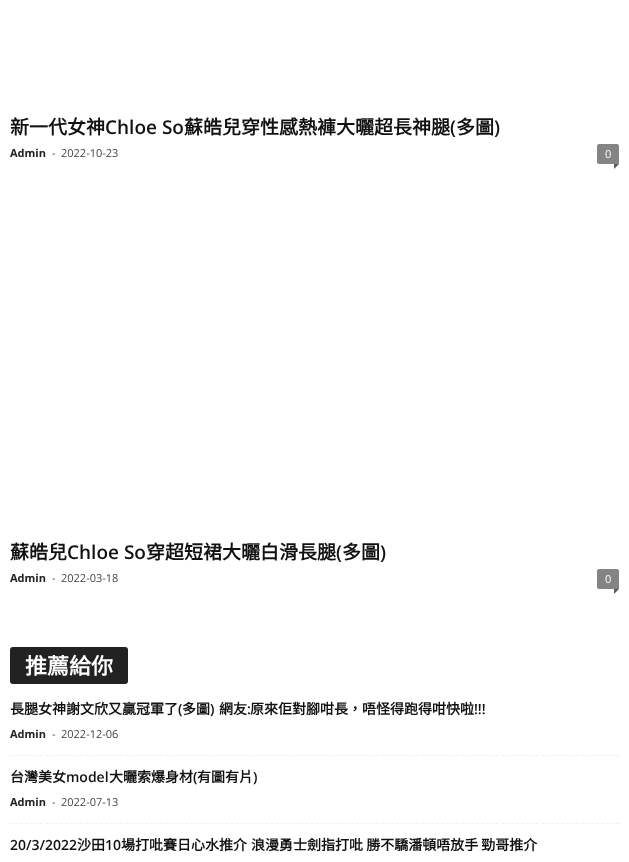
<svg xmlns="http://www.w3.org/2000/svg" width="629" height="862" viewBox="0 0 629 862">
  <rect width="100%" height="100%" fill="#fff"/>
  <path d="M599 144H617C618 144 619 145 619 146V164H599C598 164 597 163 597 162V146C597 145 598 144 599 144Z" fill="#848484"/>
  <path d="M614 164H619L614 169Z" fill="#5b5b5b"/>
  <path d="M599 569H617C618 569 619 570 619 571V589H599C598 589 597 588 597 587V571C597 570 598 569 599 569Z" fill="#848484"/>
  <path d="M614 589H619L614 594Z" fill="#5b5b5b"/>
  <rect x="10" y="647" width="118" height="37" rx="3" fill="#222"/>
  <path d="M10 755.5H619" fill="none" stroke="#f1f1f1" stroke-dasharray="3 2.01"/>
  <path d="M10 823.5H619" fill="none" stroke="#f1f1f1" stroke-dasharray="3 2.01"/>
  <text x="10" y="134" font-family="Noto Sans CJK TC" font-size="19" font-weight="bold" fill="#111">新一代女神</text>
  <text x="105" y="134" font-family="Open Sans" font-size="19" font-weight="600" fill="#111">Chloe So</text>
  <text x="184" y="134" font-family="Noto Sans CJK TC" font-size="19" font-weight="bold" fill="#111">蘇皓兒穿性感熱褲大曬超長神腿</text>
  <text x="450" y="134" font-family="Open Sans" font-size="19" font-weight="600" fill="#111">(</text>
  <text x="456" y="134" font-family="Noto Sans CJK TC" font-size="19" font-weight="bold" fill="#111">多圖</text>
  <text x="494" y="134" font-family="Open Sans" font-size="19" font-weight="600" fill="#111">)</text>
  <text x="10" y="157" font-family="Open Sans" font-size="11" font-weight="bold" fill="#222">Admin</text>
  <g font-family="Open Sans" font-size="11" fill="#444">
    <text x="52" y="157">-</text>
    <text x="61" y="157">2022-10-23</text>
  </g>
  <text x="605" y="158" font-family="Open Sans" font-size="11" fill="#fff">0</text>
  <text x="10" y="559" font-family="Noto Sans CJK TC" font-size="19" font-weight="bold" fill="#111">蘇皓兒</text>
  <text x="67" y="559" font-family="Open Sans" font-size="19" font-weight="600" fill="#111">Chloe So</text>
  <text x="146" y="559" font-family="Noto Sans CJK TC" font-size="19" font-weight="bold" fill="#111">穿超短裙大曬白滑長腿</text>
  <text x="336" y="559" font-family="Open Sans" font-size="19" font-weight="600" fill="#111">(</text>
  <text x="342" y="559" font-family="Noto Sans CJK TC" font-size="19" font-weight="bold" fill="#111">多圖</text>
  <text x="380" y="559" font-family="Open Sans" font-size="19" font-weight="600" fill="#111">)</text>
  <text x="10" y="582" font-family="Open Sans" font-size="11" font-weight="bold" fill="#222">Admin</text>
  <g font-family="Open Sans" font-size="11" fill="#444">
    <text x="52" y="582">-</text>
    <text x="61" y="582">2022-03-18</text>
  </g>
  <text x="605" y="583" font-family="Open Sans" font-size="11" fill="#fff">0</text>
  <text x="25" y="674" font-family="Noto Sans CJK TC" font-size="22" font-weight="bold" fill="#fff">推薦給你</text>
  <text x="10" y="714" font-family="Noto Sans CJK TC" font-size="14" font-weight="bold" fill="#111">長腿女神謝文欣又贏冠軍了</text>
  <text x="178" y="714" font-family="Open Sans" font-size="14" font-weight="600" fill="#111">(</text>
  <text x="182" y="714" font-family="Noto Sans CJK TC" font-size="14" font-weight="bold" fill="#111">多圖</text>
  <text x="210" y="714" font-family="Open Sans" font-size="14" font-weight="600" fill="#111">)</text>
  <text x="219" y="714" font-family="Noto Sans CJK TC" font-size="14" font-weight="bold" fill="#111">網友</text>
  <text x="247" y="714" font-family="Open Sans" font-size="14" font-weight="600" fill="#111">:</text>
  <text x="250" y="714" font-family="Noto Sans CJK TC" font-size="14" font-weight="bold" fill="#111">原來佢對腳咁長，唔怪得跑得咁快啦</text>
  <text x="474" y="714" font-family="Open Sans" font-size="14" font-weight="600" fill="#111">!!!</text>
  <text x="10" y="738" font-family="Open Sans" font-size="11" font-weight="bold" fill="#222">Admin</text>
  <g font-family="Open Sans" font-size="11" fill="#444">
    <text x="52" y="738">-</text>
    <text x="61" y="738">2022-12-06</text>
  </g>
  <text x="10" y="782" font-family="Noto Sans CJK TC" font-size="14" font-weight="bold" fill="#111">台灣美女</text>
  <text x="66" y="782" font-family="Open Sans" font-size="14" font-weight="600" fill="#111">model</text>
  <text x="109" y="782" font-family="Noto Sans CJK TC" font-size="14" font-weight="bold" fill="#111">大曬索爆身材</text>
  <text x="193" y="782" font-family="Open Sans" font-size="14" font-weight="600" fill="#111">(</text>
  <text x="197" y="782" font-family="Noto Sans CJK TC" font-size="14" font-weight="bold" fill="#111">有圖有片</text>
  <text x="253" y="782" font-family="Open Sans" font-size="14" font-weight="600" fill="#111">)</text>
  <text x="10" y="806" font-family="Open Sans" font-size="11" font-weight="bold" fill="#222">Admin</text>
  <g font-family="Open Sans" font-size="11" fill="#444">
    <text x="52" y="806">-</text>
    <text x="61" y="806">2022-07-13</text>
  </g>
  <text x="10" y="850" font-family="Open Sans" font-size="14" font-weight="600" fill="#111">20/3/2022</text>
  <text x="77" y="850" font-family="Noto Sans CJK TC" font-size="14" font-weight="bold" fill="#111">沙田</text>
  <text x="105" y="850" font-family="Open Sans" font-size="14" font-weight="600" fill="#111">10</text>
  <g font-family="Noto Sans CJK TC" font-size="14" font-weight="bold" fill="#111">
    <text x="121" y="850">場打吡賽日心水推介</text>
    <text x="251" y="850">浪漫勇士劍指打吡 勝不驕潘頓唔放手 勁哥推介</text>
  </g>
</svg>
